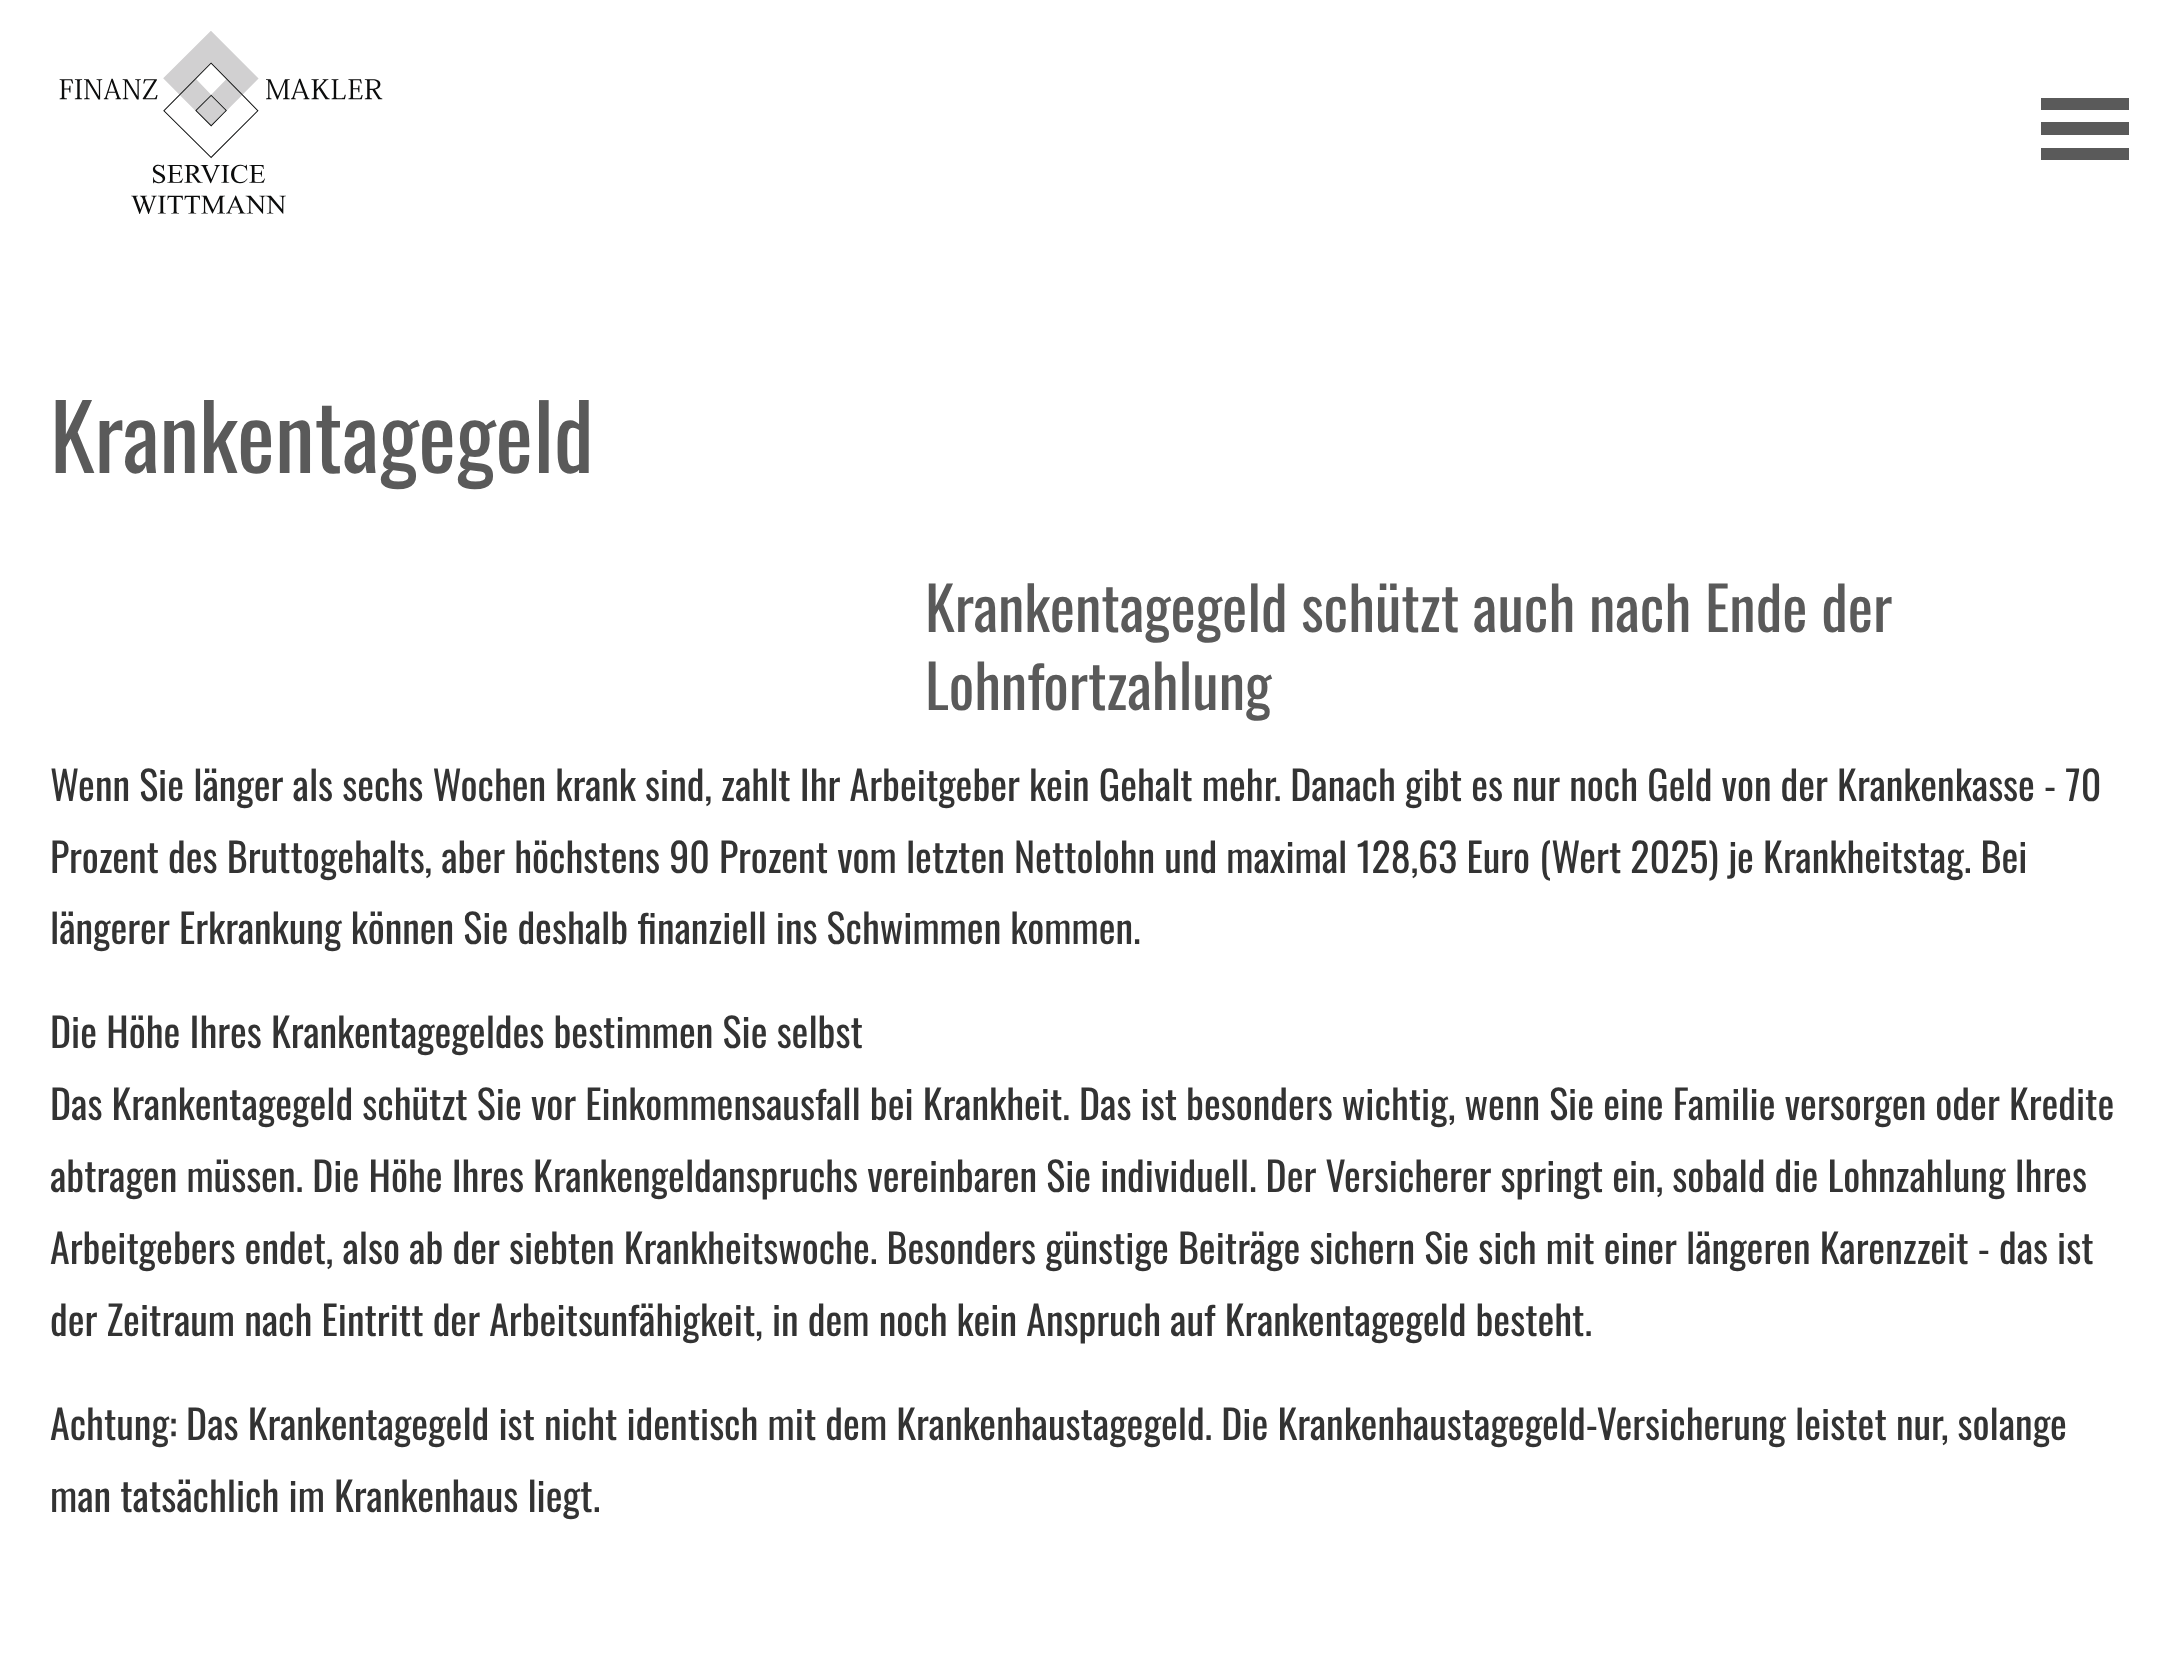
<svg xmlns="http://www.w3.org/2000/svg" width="2172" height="1655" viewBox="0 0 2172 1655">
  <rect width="100%" height="100%" fill="#fff"/>
  <image x="59" y="31" width="324" height="183" href="img/1.png"/>
  <path d="M2041 98H2129V110H2041ZM2041 122H2129V135H2041ZM2041 148H2129V160H2041Z" fill="#5a5a5a"/>
  <text x="50" y="473" font-family="Oswald" font-size="90" fill="#5a5a5a">Krankentagegeld</text>
  <g font-family="Oswald" font-size="60" fill="#5a5a5a">
    <text x="925" y="632">Krankentagegeld schützt auch nach Ende der</text>
    <text x="925" y="710">Lohnfortzahlung</text>
  </g>
  <g font-family="Oswald" font-size="40" fill="#333">
    <text x="50" y="801">Wenn Sie länger als sechs Wochen krank sind, zahlt Ihr Arbeitgeber kein Gehalt mehr. Danach gibt es nur noch Geld von der Krankenkasse - 70</text>
    <text x="50" y="873">Prozent des Bruttogehalts, aber höchstens 90 Prozent vom letzten Nettolohn und maximal 128,63 Euro (Wert 2025) je Krankheitstag. Bei</text>
    <text x="50" y="944">längerer Erkrankung können Sie deshalb finanziell ins Schwimmen kommen.</text>
    <text x="50" y="1048">Die Höhe Ihres Krankentagegeldes bestimmen Sie selbst</text>
    <text x="50" y="1120">Das Krankentagegeld schützt Sie vor Einkommensausfall bei Krankheit. Das ist besonders wichtig, wenn Sie eine Familie versorgen oder Kredite</text>
    <text x="50" y="1192">abtragen müssen. Die Höhe Ihres Krankengeldanspruchs vereinbaren Sie individuell. Der Versicherer springt ein, sobald die Lohnzahlung Ihres</text>
    <text x="50" y="1264">Arbeitgebers endet, also ab der siebten Krankheitswoche. Besonders günstige Beiträge sichern Sie sich mit einer längeren Karenzzeit - das ist</text>
    <text x="50" y="1336">der Zeitraum nach Eintritt der Arbeitsunfähigkeit, in dem noch kein Anspruch auf Krankentagegeld besteht.</text>
    <text x="50" y="1440">Achtung: Das Krankentagegeld ist nicht identisch mit dem Krankenhaustagegeld. Die Krankenhaustagegeld-Versicherung leistet nur, solange</text>
    <text x="50" y="1512">man tatsächlich im Krankenhaus liegt.</text>
  </g>
</svg>
